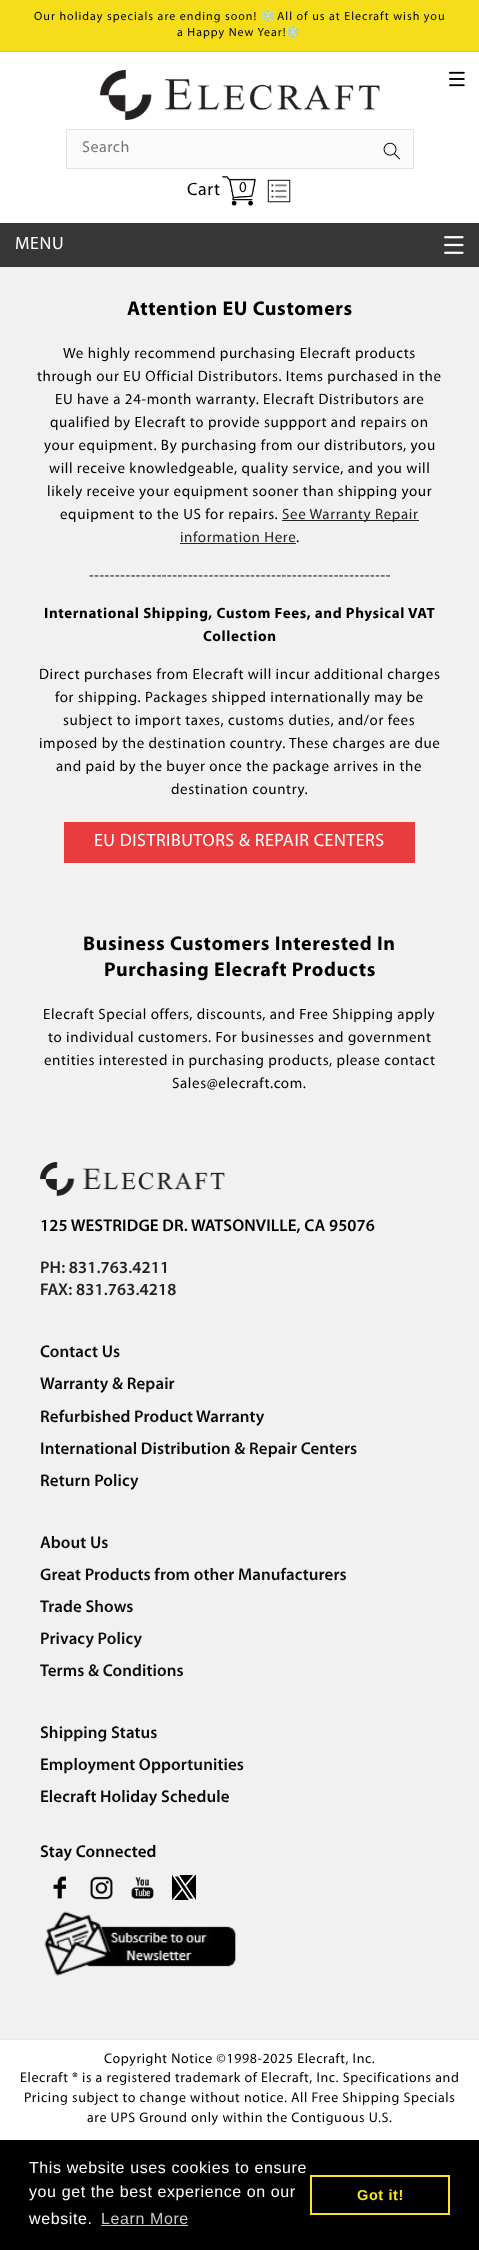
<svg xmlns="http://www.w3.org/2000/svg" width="479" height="2250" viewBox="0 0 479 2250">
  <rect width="100%" height="100%" fill="#f1f1f1"/>
  <path d="M0 0h479v51H0z" fill="#f5dd1a"/>
  <path d="M0 51h479v1H0z" fill="#e1cb18"/>
  <path d="M0 52h479v171H0z" fill="#fff"/>
  <image x="100" y="70" width="280" height="50" href="img/1.png"/>
  <image x="449" y="71" width="16" height="16" href="img/2.png"/>
  <path d="M66.5 129.5h347v39H66.5z" fill="#fbfbfb" stroke="#e3e3e3"/>
  <image x="383" y="142" width="17" height="18" href="img/3.png"/>
  <image x="222" y="176" width="34" height="30" href="img/4.png"/>
  <image x="267" y="179" width="24" height="24" href="img/5.png"/>
  <path d="M0 223h479v44H0z" fill="#363636"/>
  <image x="444" y="236" width="20" height="18" href="img/6.png"/>
  <path d="M282 520h137v1H282z" fill="#242424"/>
  <path d="M180 543h116v1H180z" fill="#242424"/>
  <path d="M64 822h351v41H64z" fill="#ea3c3c"/>
  <image x="40" y="1162" width="185" height="34" href="img/7.png"/>
  <image x="53" y="1876" width="13" height="23" href="img/8.png"/>
  <image x="90" y="1876" width="23" height="24" href="img/9.png"/>
  <image x="131" y="1877" width="23" height="22" href="img/10.png"/>
  <image x="172" y="1875" width="24" height="25" href="img/11.png"/>
  <image x="44" y="1911" width="192" height="65" href="img/12.png"/>
  <path d="M0 2040h479v100H0z" fill="#fff"/>
  <path d="M0 2039h479v1H0z" fill="#ebebeb"/>
  <path d="M0 2140h479v110H0z" fill="#000"/>
  <path d="M101 2225h87v1H101z" fill="#ccc"/>
  <path d="M311 2176h138v38H311z" fill="none" stroke="#f8e71c" stroke-width="2"/>
  <text x="34" y="20" font-family="Myriad" font-size="12" letter-spacing="1" fill="#000">Our holiday specials are ending soon!</text>
  <text x="260" y="20" font-family="Noto Color Emoji" font-size="12" letter-spacing="1" fill="#000">❄️</text>
  <g font-family="Myriad" font-size="12" letter-spacing="1" fill="#000">
    <text x="277" y="20">All of us at Elecraft wish you</text>
    <text x="177" y="36">a Happy New Year!</text>
  </g>
  <text x="285" y="36" font-family="Noto Color Emoji" font-size="12" letter-spacing="1" fill="#000">❄️</text>
  <text x="82" y="152" font-family="Myriad" font-size="16" letter-spacing="0.5" fill="#757575">Search</text>
  <text x="187" y="195" font-family="Myriad" font-size="18" letter-spacing="0.6" fill="#000">Cart</text>
  <text x="239" y="192" font-family="Myriad" font-size="15" letter-spacing="0.6" fill="#000">0</text>
  <text x="15" y="249" font-family="Myriad" font-size="18" letter-spacing="0.6" fill="#fff">MENU</text>
  <text x="127" y="315" font-family="Myriad" font-size="20" font-weight="bold" letter-spacing="0.6" fill="#000">Attention EU Customers</text>
  <g font-family="Myriad" font-size="15" letter-spacing="0.6" fill="#000">
    <text x="63" y="358">We highly recommend purchasing Elecraft products</text>
    <text x="37" y="381">through our EU Official Distributors. Items purchased in the</text>
    <text x="55" y="404">EU have a 24-month warranty. Elecraft Distributors are</text>
    <text x="50" y="427">qualified by Elecraft to provide suppport and repairs on</text>
    <text x="44" y="450">your equipment. By purchasing from our distributors, you</text>
    <text x="49" y="473">will receive knowledgeable, quality service, and you will</text>
    <text x="47" y="496">likely receive your equipment sooner than shipping your</text>
    <text x="60" y="519">equipment to the US for repairs.</text>
  </g>
  <g font-family="Myriad" font-size="15" letter-spacing="0.6" fill="#242424">
    <text x="282" y="519">See Warranty Repair</text>
    <text x="180" y="542">information Here</text>
  </g>
  <g font-family="Myriad" font-size="15" letter-spacing="0.6" fill="#000">
    <text x="296" y="542">.</text>
    <text x="89" y="580">----------------------------------------------------------</text>
  </g>
  <g font-family="Myriad" font-size="15" font-weight="bold" letter-spacing="0.6" fill="#000">
    <text x="44" y="618">International Shipping, Custom Fees, and Physical VAT</text>
    <text x="203" y="641">Collection</text>
  </g>
  <g font-family="Myriad" font-size="15" letter-spacing="0.6" fill="#000">
    <text x="39" y="679">Direct purchases from Elecraft will incur additional charges</text>
    <text x="55" y="702">for shipping. Packages shipped internationally may be</text>
    <text x="63" y="725">subject to import taxes, customs duties, and/or fees</text>
    <text x="39" y="748">imposed by the destination country. These charges are due</text>
    <text x="56" y="771">and paid by the buyer once the package arrives in the</text>
    <text x="171" y="794">destination country.</text>
  </g>
  <text x="94" y="846" font-family="Myriad" font-size="18" letter-spacing="0.5" fill="#fff">EU DISTRIBUTORS &amp; REPAIR CENTERS</text>
  <g font-family="Myriad" font-size="20" font-weight="bold" letter-spacing="0.6" fill="#000">
    <text x="83" y="950">Business Customers Interested In</text>
    <text x="104" y="976">Purchasing Elecraft Products</text>
  </g>
  <g font-family="Myriad" font-size="15" letter-spacing="0.6" fill="#000">
    <text x="43" y="1019">Elecraft Special offers, discounts, and Free Shipping apply</text>
    <text x="48" y="1042">to individual customers. For businesses and government</text>
    <text x="44" y="1065">entities interested in purchasing products, please contact</text>
    <text x="172" y="1088">Sales@elecraft.com.</text>
  </g>
  <text x="40" y="1231" font-family="Myriad" font-size="17" font-weight="600" letter-spacing="0.1" fill="#000">125 WESTRIDGE DR. WATSONVILLE, CA 95076</text>
  <g font-family="Myriad" font-size="17" font-weight="600" letter-spacing="0.1" fill="#242424">
    <text x="40" y="1273">PH: 831.763.4211</text>
    <text x="40" y="1295">FAX: 831.763.4218</text>
  </g>
  <g font-family="Myriad" font-size="17" font-weight="600" letter-spacing="0.1" fill="#0c0c0c">
    <text x="40" y="1357">Contact Us</text>
    <text x="40" y="1389">Warranty &amp; Repair</text>
    <text x="40" y="1422">Refurbished Product Warranty</text>
    <text x="40" y="1454">International Distribution &amp; Repair Centers</text>
    <text x="40" y="1486">Return Policy</text>
    <text x="40" y="1548">About Us</text>
    <text x="40" y="1580">Great Products from other Manufacturers</text>
    <text x="40" y="1612">Trade Shows</text>
    <text x="40" y="1644">Privacy Policy</text>
    <text x="40" y="1676">Terms &amp; Conditions</text>
    <text x="40" y="1738">Shipping Status</text>
    <text x="40" y="1770">Employment Opportunities</text>
    <text x="40" y="1802">Elecraft Holiday Schedule</text>
  </g>
  <text x="40" y="1857" font-family="Myriad" font-size="17" font-weight="600" letter-spacing="0.1" fill="#000">Stay Connected</text>
  <g font-family="Myriad" font-size="14" letter-spacing="0.6" fill="#000">
    <text x="104" y="2063">Copyright Notice ©1998-2025 Elecraft, Inc.</text>
    <text x="20" y="2082">Elecraft ® is a registered trademark of Elecraft, Inc. Specifications and</text>
    <text x="24" y="2102">Pricing subject to change without notice. All Free Shipping Specials</text>
    <text x="87" y="2122">are UPS Ground only within the Contiguous U.S.</text>
  </g>
  <g font-family="Liberation Sans" font-size="16" letter-spacing="0.6" fill="#fff">
    <text x="29" y="2173">This website uses cookies to ensure</text>
    <text x="29" y="2197">you get the best experience on our</text>
    <text x="29" y="2224">website.</text>
  </g>
  <text x="101" y="2224" font-family="Liberation Sans" font-size="16" letter-spacing="0.6" fill="#ccc">Learn More</text>
  <text x="357" y="2200" font-family="Liberation Sans" font-size="14.5" font-weight="bold" letter-spacing="0.6" fill="#f8e71c">Got it!</text>
</svg>
